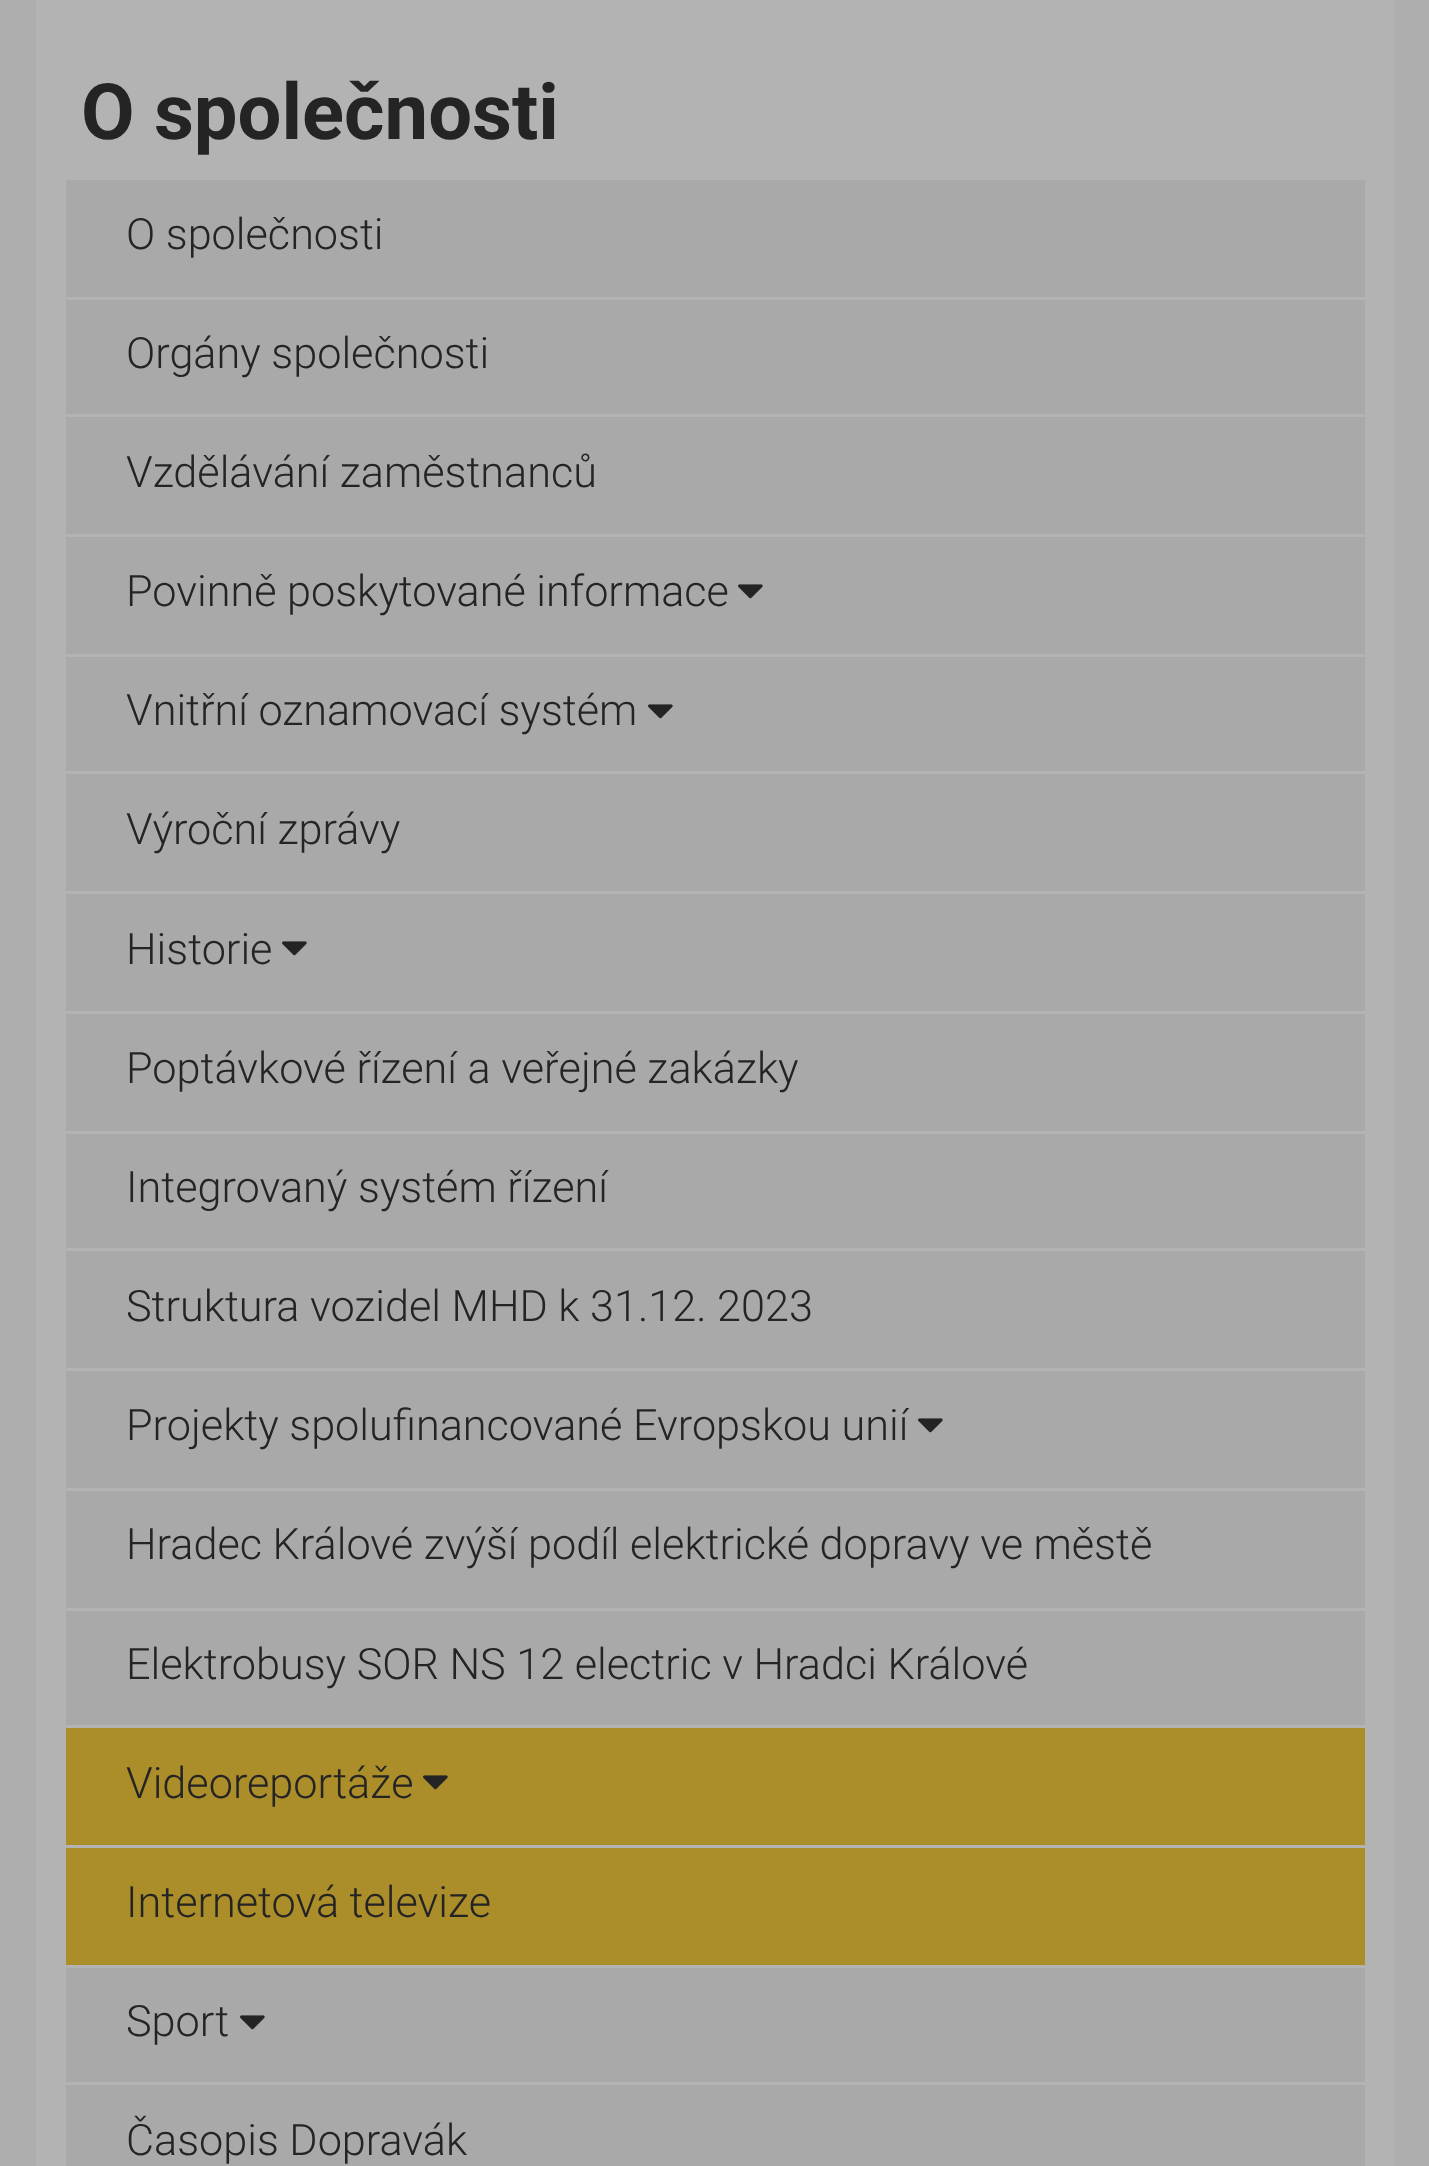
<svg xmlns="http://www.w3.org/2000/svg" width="1429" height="2166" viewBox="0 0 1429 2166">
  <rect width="100%" height="100%" fill="#aeaeae"/>
  <path d="M36 0h1359v2166H36z" fill="#b3b3b3"/>
  <path d="M66 180h1299v1986H66z" fill="#a9a9a9"/>
  <path d="M66 297h1299v3H66z" fill="#b3b3b3"/>
  <path d="M66 414h1299v3H66z" fill="#b3b3b3"/>
  <path d="M66 534h1299v3H66z" fill="#b3b3b3"/>
  <path d="M66 654h1299v3H66z" fill="#b3b3b3"/>
  <image x="738" y="584" width="25" height="15" href="img/1.png"/>
  <path d="M66 771h1299v3H66z" fill="#b3b3b3"/>
  <image x="648" y="704" width="25" height="15" href="img/1.png"/>
  <path d="M66 891h1299v3H66z" fill="#b3b3b3"/>
  <path d="M66 1011h1299v3H66z" fill="#b3b3b3"/>
  <image x="282" y="941" width="25" height="15" href="img/1.png"/>
  <path d="M66 1131h1299v3H66z" fill="#b3b3b3"/>
  <path d="M66 1248h1299v3H66z" fill="#b3b3b3"/>
  <path d="M66 1368h1299v3H66z" fill="#b3b3b3"/>
  <path d="M66 1488h1299v3H66z" fill="#b3b3b3"/>
  <image x="918" y="1418" width="25" height="15" href="img/1.png"/>
  <path d="M66 1608h1299v3H66z" fill="#b3b3b3"/>
  <path d="M66 1725h1299v3H66z" fill="#b3b3b3"/>
  <path d="M66 1728h1299v117H66z" fill="#ab8d29"/>
  <path d="M66 1845h1299v3H66z" fill="#b3b3b3"/>
  <image x="423" y="1775" width="25" height="15" href="img/2.png"/>
  <path d="M66 1848h1299v117H66z" fill="#ab8d29"/>
  <path d="M66 1965h1299v3H66z" fill="#b3b3b3"/>
  <path d="M66 2082h1299v3H66z" fill="#b3b3b3"/>
  <image x="240" y="2015" width="25" height="15" href="img/1.png"/>
  <text x="81" y="139" font-family="Roboto" font-size="77.75" font-weight="bold" fill="#242424">O společnosti</text>
  <g font-family="Roboto" font-size="43.2" font-weight="300" fill="#242424">
    <text x="126" y="249">O společnosti</text>
    <text x="126" y="368">Orgány společnosti</text>
    <text x="126" y="487">Vzdělávání zaměstnanců</text>
    <text x="126" y="606">Povinně poskytované informace</text>
    <text x="126" y="725">Vnitřní oznamovací systém</text>
    <text x="126" y="844">Výroční zprávy</text>
    <text x="126" y="964">Historie</text>
    <text x="126" y="1083">Poptávkové řízení a veřejné zakázky</text>
    <text x="126" y="1202">Integrovaný systém řízení</text>
    <text x="126" y="1321">Struktura vozidel MHD k 31.12. 2023</text>
    <text x="126" y="1440">Projekty spolufinancované Evropskou unií</text>
    <text x="126" y="1559">Hradec Králové zvýší podíl elektrické dopravy ve městě</text>
    <text x="126" y="1679">Elektrobusy SOR NS 12 electric v Hradci Králové</text>
    <text x="126" y="1798">Videoreportáže</text>
    <text x="126" y="1917">Internetová televize</text>
    <text x="126" y="2036">Sport</text>
    <text x="126" y="2155">Časopis Dopravák</text>
  </g>
</svg>
